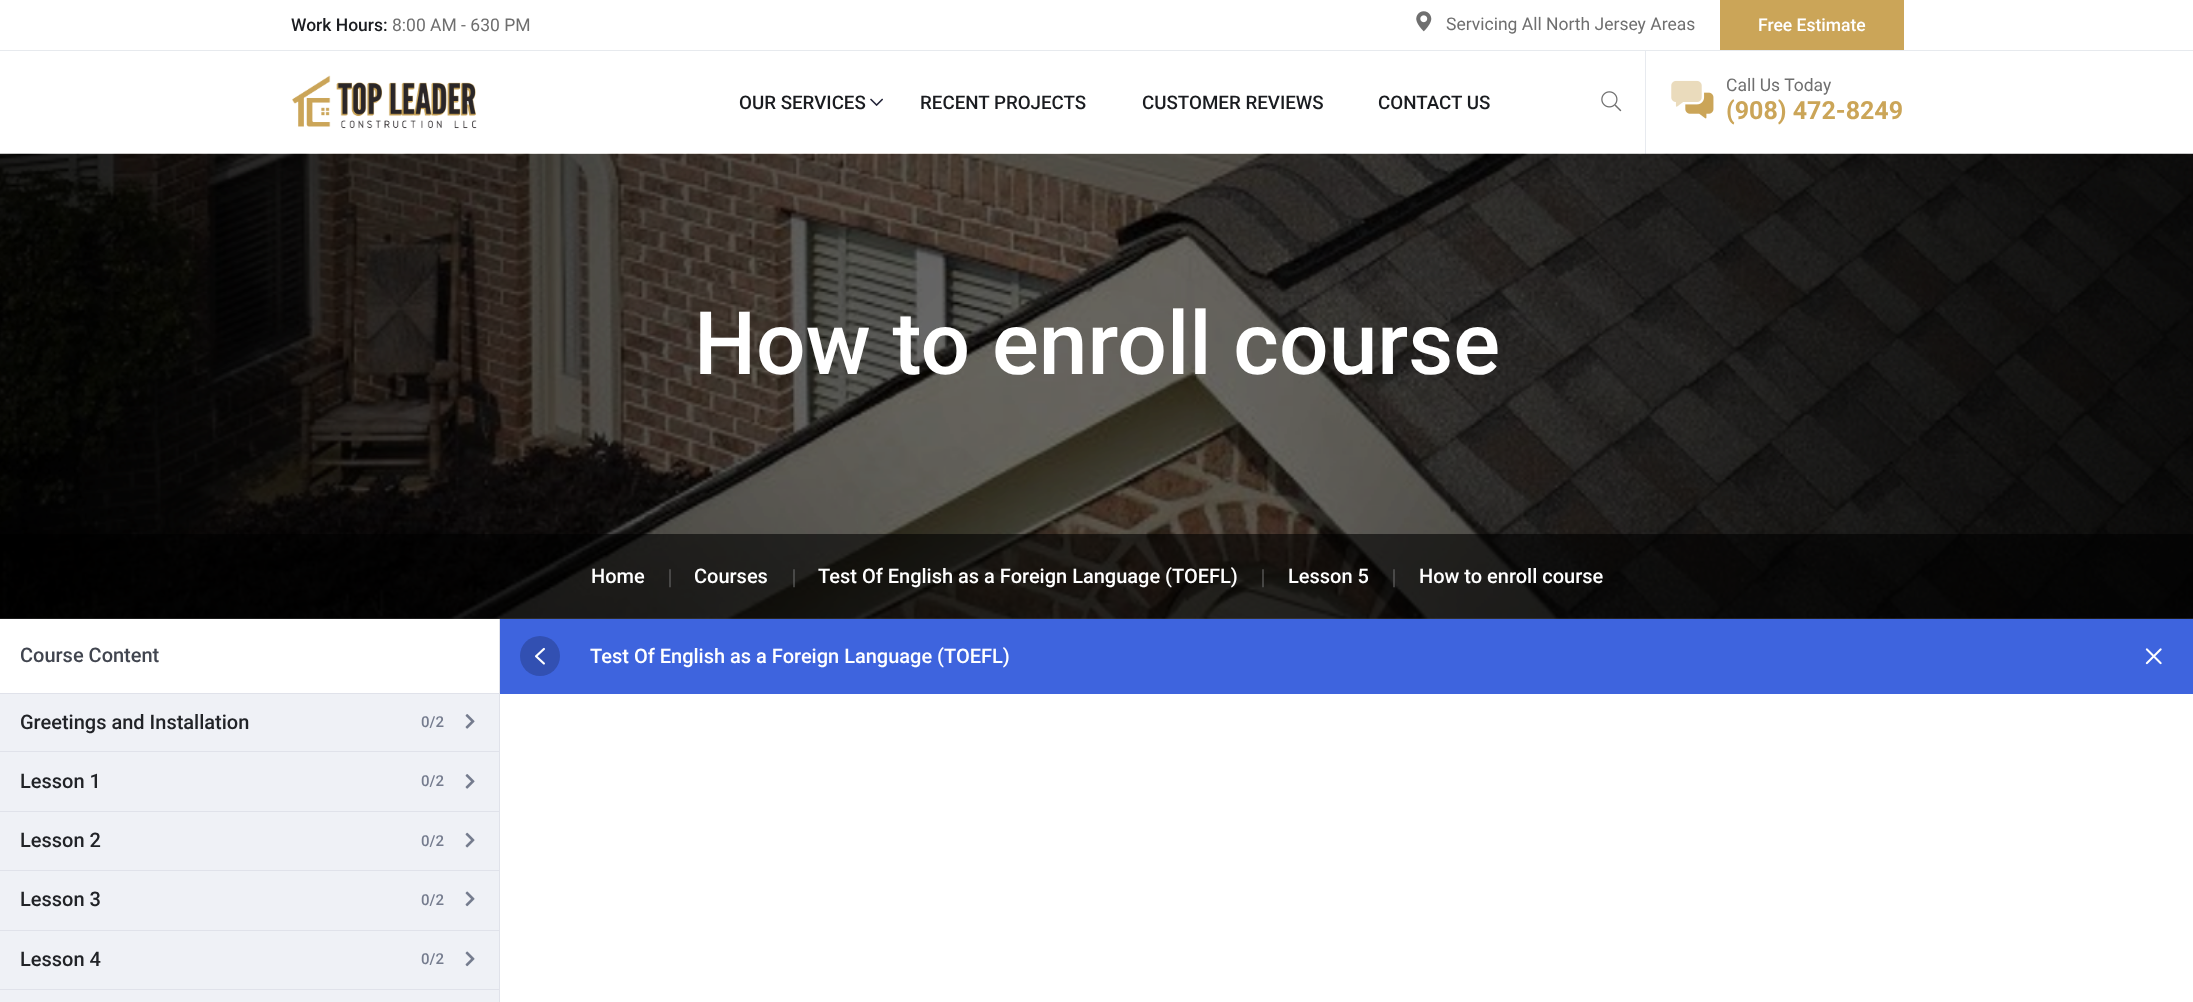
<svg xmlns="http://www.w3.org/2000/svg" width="2193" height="1002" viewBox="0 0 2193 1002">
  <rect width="100%" height="100%" fill="#fff"/>
  <path d="M0 50h2193v1H0z" fill="#e7eaee"/>
  <image x="1416" y="11" width="16" height="21" href="img/1.png"/>
  <path d="M1720 0h184v50H1720z" fill="#cba558"/>
  <image x="292" y="75" width="185" height="54" href="img/2.png"/>
  <image x="870" y="98" width="13" height="8" href="img/3.png"/>
  <image x="1601" y="91" width="21" height="21" href="img/4.png"/>
  <path d="M1645 51h1v103H1645z" fill="#e7eaef"/>
  <image x="1685" y="92" width="29" height="27" href="img/6.png"/>
  <image x="1671" y="80" width="31" height="27" href="img/5.png"/>
  <image x="0" y="153" width="2193" height="466" href="img/7.png"/>
  <path d="M0 534h2193v85H0z" fill="#00000099"/>
  <path d="M0 694h499v308H0z" fill="#eff1f6"/>
  <path d="M499 619h1v383H499z" fill="#e0e2ea"/>
  <path d="M0 693h499v1H0z" fill="#e0e2ea"/>
  <path d="M0 751h499v1H0z" fill="#e0e2ea"/>
  <image x="465" y="714" width="10" height="15" href="img/8.png"/>
  <path d="M0 811h499v1H0z" fill="#e0e2ea"/>
  <image x="465" y="774" width="10" height="15" href="img/8.png"/>
  <path d="M0 870h499v1H0z" fill="#e0e2ea"/>
  <image x="465" y="832" width="10" height="16" href="img/9.png"/>
  <path d="M0 930h499v1H0z" fill="#e0e2ea"/>
  <image x="465" y="891" width="10" height="16" href="img/10.png"/>
  <path d="M0 989h499v1H0z" fill="#e0e2ea"/>
  <image x="465" y="951" width="10" height="16" href="img/10.png"/>
  <path d="M500 619h1693v75H500z" fill="#3e64de"/>
  <circle cx="540" cy="656" r="20" fill="#3250b2"/>
  <image x="535" y="647" width="10" height="18" href="img/11.png"/>
  <image x="2145" y="648" width="17" height="17" href="img/12.png"/>
  <text x="291" y="31" font-family="Roboto" font-size="17.5" font-weight="500" fill="#1a1c20">Work Hours:</text>
  <g font-family="Roboto" font-size="17.5" fill="#6f6f6f">
    <text x="392" y="31">8:00 AM - 630 PM</text>
    <text x="1446" y="30">Servicing All North Jersey Areas</text>
  </g>
  <text x="1758" y="31" font-family="Roboto" font-size="17.5" font-weight="500" fill="#fff">Free Estimate</text>
  <g font-family="Roboto" font-size="18.75" font-weight="500" fill="#1a1c20">
    <text x="739" y="109">OUR SERVICES</text>
    <text x="920" y="109">RECENT PROJECTS</text>
    <text x="1142" y="109">CUSTOMER REVIEWS</text>
    <text x="1378" y="109">CONTACT US</text>
  </g>
  <text x="1726" y="91" font-family="Roboto" font-size="17.5" fill="#6f6f6f">Call Us Today</text>
  <text x="1726" y="119" font-family="Roboto" font-size="25" font-weight="bold" fill="#cba558">(908) 472-8249</text>
  <text x="694" y="374" font-family="Roboto" font-size="87.5" font-weight="500" fill="#fff">How to enroll course</text>
  <text x="591" y="583" font-family="Roboto" font-size="20" font-weight="500" fill="#fff">Home</text>
  <text x="668" y="583" font-family="Liberation Serif" font-size="20" fill="#6f6f6f">|</text>
  <text x="694" y="583" font-family="Roboto" font-size="20" font-weight="500" fill="#fff">Courses</text>
  <text x="792" y="583" font-family="Liberation Serif" font-size="20" fill="#6f6f6f">|</text>
  <text x="818" y="583" font-family="Roboto" font-size="20" font-weight="500" fill="#fff">Test Of English as a Foreign Language (TOEFL)</text>
  <text x="1261" y="583" font-family="Liberation Serif" font-size="20" fill="#6f6f6f">|</text>
  <text x="1288" y="583" font-family="Roboto" font-size="20" font-weight="500" fill="#fff">Lesson 5</text>
  <text x="1392" y="583" font-family="Liberation Serif" font-size="20" fill="#6f6f6f">|</text>
  <text x="1419" y="583" font-family="Roboto" font-size="20" font-weight="500" fill="#fff">How to enroll course</text>
  <text x="20" y="662" font-family="Roboto" font-size="20" font-weight="500" fill="#41454f">Course Content</text>
  <text x="20" y="729" font-family="Roboto" font-size="20" font-weight="500" fill="#212327">Greetings and Installation</text>
  <text x="421" y="727" font-family="Roboto" font-size="15" font-weight="500" fill="#757c8e">0/2</text>
  <text x="20" y="788" font-family="Roboto" font-size="20" font-weight="500" fill="#212327">Lesson 1</text>
  <text x="421" y="786" font-family="Roboto" font-size="15" font-weight="500" fill="#757c8e">0/2</text>
  <text x="20" y="847" font-family="Roboto" font-size="20" font-weight="500" fill="#212327">Lesson 2</text>
  <text x="421" y="846" font-family="Roboto" font-size="15" font-weight="500" fill="#757c8e">0/2</text>
  <text x="20" y="906" font-family="Roboto" font-size="20" font-weight="500" fill="#212327">Lesson 3</text>
  <text x="421" y="905" font-family="Roboto" font-size="15" font-weight="500" fill="#757c8e">0/2</text>
  <text x="20" y="966" font-family="Roboto" font-size="20" font-weight="500" fill="#212327">Lesson 4</text>
  <text x="421" y="964" font-family="Roboto" font-size="15" font-weight="500" fill="#757c8e">0/2</text>
  <text x="590" y="663" font-family="Roboto" font-size="20" font-weight="500" fill="#fff">Test Of English as a Foreign Language (TOEFL)</text>
</svg>
